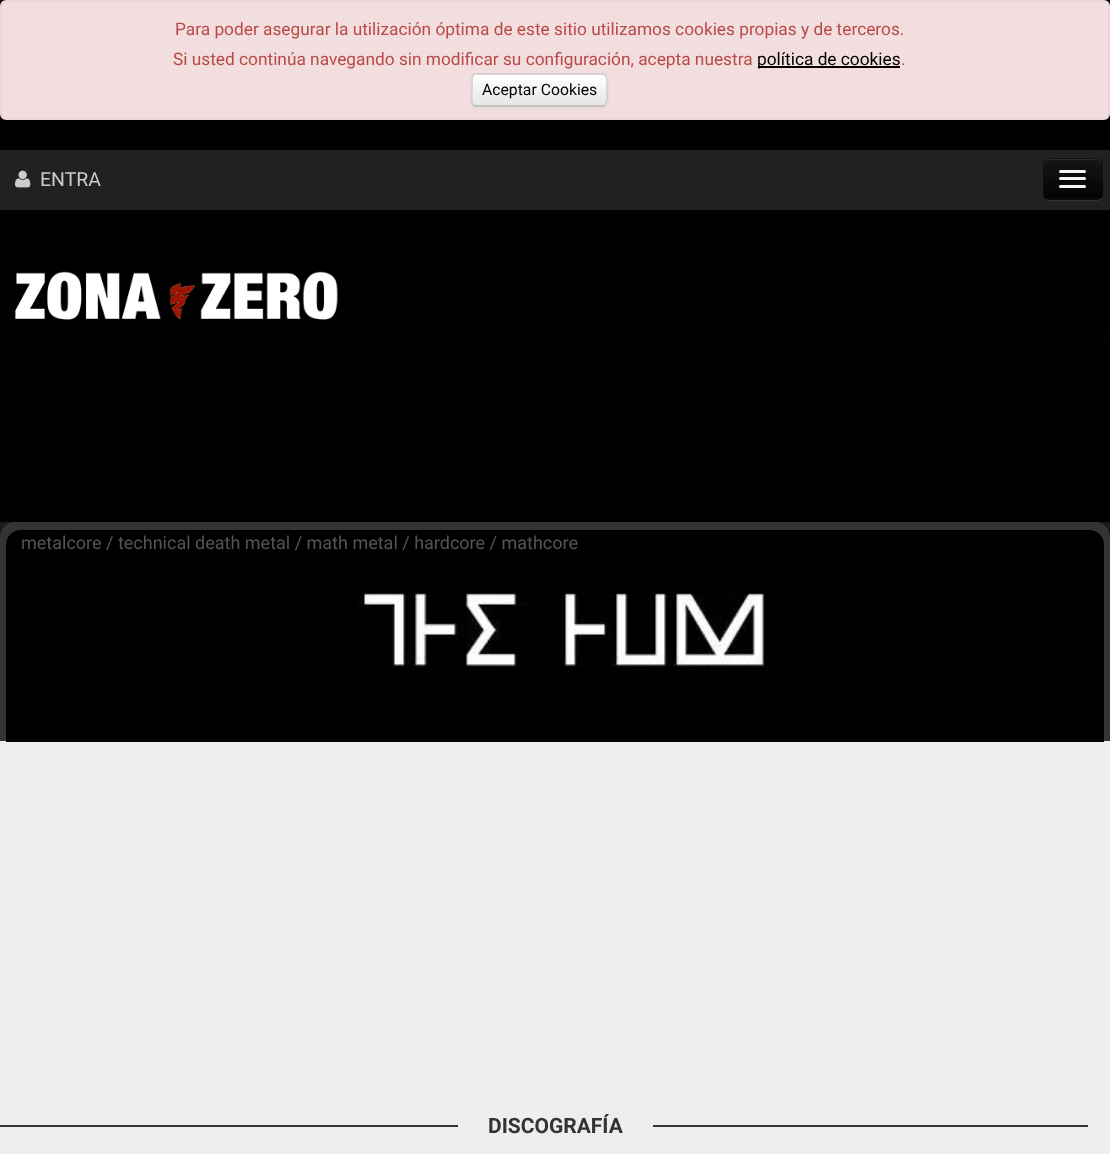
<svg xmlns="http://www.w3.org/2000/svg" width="1110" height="1154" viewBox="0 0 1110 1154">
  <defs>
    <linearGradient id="g1" gradientUnits="userSpaceOnUse" x1="555" y1="0" x2="555" y2="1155"><stop offset="0.01" stop-color="#000"/><stop offset="0.28" stop-color="#000"/><stop offset="1" stop-color="#6d6d6d"/></linearGradient>
    <clipPath id="clip1"><rect x="471" y="74" width="137" height="33" rx="5"/></clipPath>
    <linearGradient id="g2" gradientUnits="userSpaceOnUse" x1="539" y1="75" x2="539" y2="105"><stop offset="0" stop-color="#fff"/><stop offset="1" stop-color="#e6e6e6"/></linearGradient>
    <clipPath id="clip2"><rect x="1043" y="158" width="60" height="42" rx="6"/></clipPath>
    <linearGradient id="g3" gradientUnits="userSpaceOnUse" x1="1073" y1="159" x2="1073" y2="198"><stop offset="0" stop-color="#151515"/><stop offset="1" stop-color="#040404"/></linearGradient>
  </defs>
  <rect width="100%" height="100%" fill="#fff"/>
  <path d="M0 0h1110v537H0z" fill="url(#g1)"/>
  <rect x="1" y="1" width="1108" height="118" rx="5" fill="#f2dede" stroke="#eed3d7" stroke-width="2"/>
  <path d="M758 66h142v2H758z" fill="#000"/>
  <rect x="471" y="75" width="137" height="33" rx="5" fill="#0000000d" filter="blur(1.5px)"/>
  <rect x="471" y="74" width="137" height="33" rx="5" fill="#f5f5f5"/>
  <g clip-path="url(#clip1)">
    <path d="M471 75h137v30H471z" fill="url(#g2)"/>
  </g>
  <path d="M605.5 104.5C605 105.5 604 106 603 106H475.5C474.5 106 473.5 105.5 473 104.5" fill="none" stroke="#b3b3b3" stroke-width="1.5"/>
  <path d="M473 104.5C470.5 102.5 472 93 472 90V82C472 79 471 74.5 475.5 74H603C607.5 74.5 607 79 607 82V90C607 93 608 102.5 605.5 104.5" fill="none" stroke="#ccc" stroke-width="1.5"/>
  <path d="M0 150h1110v60H0z" fill="#212121"/>
  <image x="15" y="170" width="16" height="18" href="img/1.png"/>
  <path d="M1043 196C1044 199 1046 201 1049 201H1097C1100 201 1103 198 1103 195V165L1102 162V195L1101 197C1101 198 1099 199 1098 199L1056 200C1052 200 1045 201 1043 196Z" fill="#323232"/>
  <rect x="1043" y="158" width="60" height="42" rx="6" fill="#0e0e0e"/>
  <g clip-path="url(#clip2)">
    <path d="M1043 159h60v39H1043z" fill="url(#g3)"/>
  </g>
  <path d="M1048 160H1096C1099 160 1101 163 1101 165C1101 157 1094 159 1088 159H1057C1051 159 1044 157 1044 165C1044 163 1046 160 1048 160Z" fill="#2c2c2c"/>
  <path d="M1100 197C1099 198 1098 199 1096.5 199H1048.5C1047 199 1046 198 1045 197" fill="none" stroke="#00000040" stroke-width="1.5"/>
  <path d="M1059 172C1057.5 175 1064.5 174 1064.5 174H1080.5C1080.5 174 1087.5 175 1086 172C1085.5 172 1085 172.5 1084.5 172.5H1060.5C1060 172.5 1059.5 172 1059 172Z" fill="#0b0b0b"/>
  <rect x="1059" y="170" width="27" height="3" rx="1.5" fill="#f5f5f5"/>
  <path d="M1059.5 179.5L1059 181C1059.5 183 1064 182 1064.5 182H1080.5C1081 182 1085.5 183 1086 181L1085.5 179.5L1084.5 180H1060.5Z" fill="#090909"/>
  <rect x="1059" y="177" width="27" height="3" rx="1.5" fill="#f5f5f5"/>
  <rect x="1059" y="185" width="27" height="3" rx="1.5" fill="#f5f5f5"/>
  <path d="M0 342h1110v180H0z" fill="#000"/>
  <image x="15" y="271" width="323" height="49" href="img/2.png"/>
  <rect y="522" width="1110" height="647" rx="15" fill="#343434"/>
  <path d="M21 530H1089C1097.5 530 1104 536.5 1104 545V741H6V545C6 536.5 12.5 530 21 530Z" fill="#000"/>
  <path d="M0 741h1110v413H0z" fill="#eee"/>
  <path d="M6 741h1098v1H6z" fill="#000"/>
  <image x="358" y="593" width="409" height="74" href="img/3.png"/>
  <path d="M0 1125h1088v2H0z" fill="#333"/>
  <path d="M458 1125h195v2H458z" fill="#eee"/>
  <g font-family="Roboto" font-size="17.3" fill="#b94a48">
    <text x="175" y="35">Para poder asegurar la utilización óptima de este sitio utilizamos cookies propias y de terceros.</text>
    <text x="173" y="65">Si usted continúa navegando sin modificar su configuración, acepta nuestra</text>
  </g>
  <text x="757" y="65" font-family="Roboto" font-size="17.3" fill="#000">política de cookies</text>
  <text x="901" y="65" font-family="Roboto" font-size="17.3" fill="#b94a48">.</text>
  <text x="482" y="95" font-family="Roboto" font-size="15.75" fill="#000">Aceptar Cookies</text>
  <text x="40" y="186" font-family="Roboto" font-size="19.5" fill="#ccc">ENTRA</text>
  <text x="21" y="549" font-family="Roboto" font-size="18" fill="#555">metalcore / technical death metal / math metal / hardcore / mathcore</text>
  <text x="488" y="1133" font-family="Roboto" font-size="21" font-weight="bold" fill="#333">DISCOGRAFÍA</text>
</svg>
